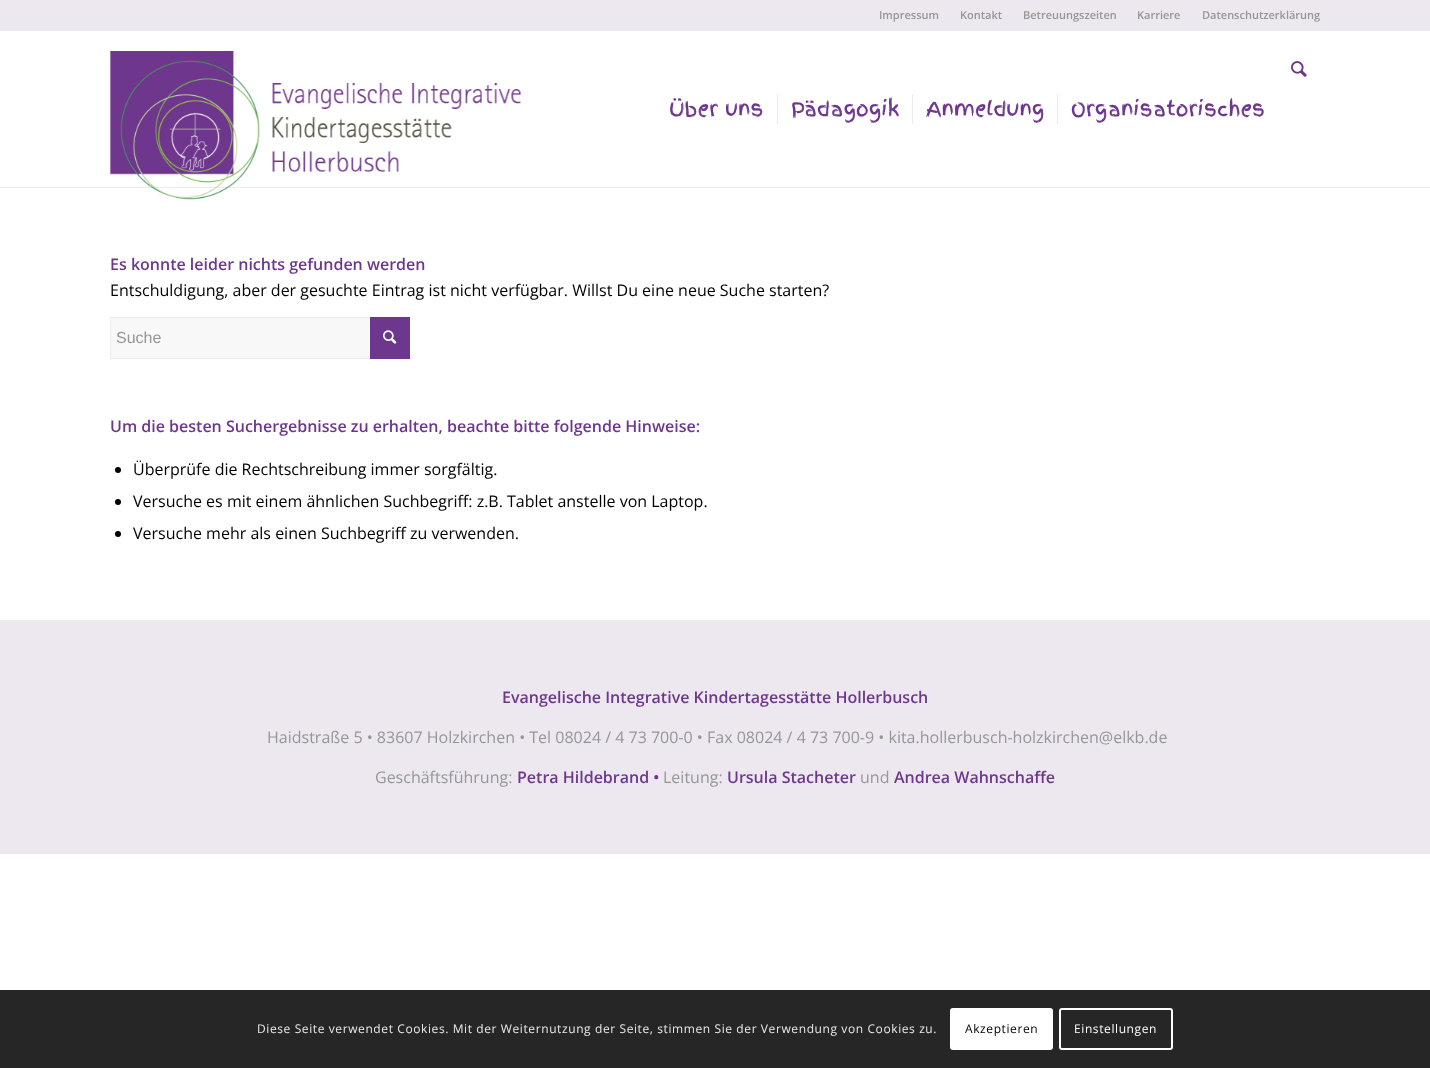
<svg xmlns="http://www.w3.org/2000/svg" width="1430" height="1068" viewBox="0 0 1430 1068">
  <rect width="100%" height="100%" fill="#fff"/>
  <path d="M0 0h1430v30H0z" fill="#ede8f0"/>
  <path d="M0 30h1430v1H0z" fill="#ebebeb"/>
  <path d="M949 10h1v10H949z" fill="#ebebeb"/>
  <path d="M1012 10h1v10H1012z" fill="#ebebeb"/>
  <path d="M1126 10h1v10H1126z" fill="#ebebeb"/>
  <path d="M1191 10h1v10H1191z" fill="#ebebeb"/>
  <path d="M0 187h1430v1H0z" fill="#ebebeb"/>
  <image x="110" y="51" width="412" height="149" href="img/1.png"/>
  <image x="1291" y="61" width="16" height="16" href="img/2.png"/>
  <path d="M777 94h1v30H777z" fill="#ebebeb"/>
  <path d="M912 94h1v30H912z" fill="#ebebeb"/>
  <path d="M1057 94h1v30H1057z" fill="#ebebeb"/>
  <path d="M111 318h259v40H111z" fill="#f8f8f8"/>
  <path d="M110.5 317.5h299v41H110.5z" fill="none" stroke="#ebebeb"/>
  <path d="M370 317h40v42H370z" fill="#6d378d"/>
  <image x="383" y="330" width="14" height="14" href="img/3.png"/>
  <circle cx="118" cy="470" r="3" fill="#000"/>
  <circle cx="118" cy="502" r="3" fill="#000"/>
  <circle cx="118" cy="534" r="3" fill="#000"/>
  <path d="M0 621h1430v233H0z" fill="#ede8f0"/>
  <path d="M0 620h1430v1H0z" fill="#ebebeb"/>
  <path d="M0 990h1430v78H0z" fill="#262626"/>
  <rect x="950" y="1008" width="103" height="42" rx="3" fill="#fff"/>
  <rect x="1060" y="1009" width="112" height="40" rx="2" fill="none" stroke="#fff" stroke-width="2"/>
  <g font-family="Open Sans" font-size="11" font-weight="600" fill="#969696">
    <text x="879" y="19">Impressum</text>
    <text x="960" y="19">Kontakt</text>
    <text x="1023" y="19">Betreuungszeiten</text>
    <text x="1137" y="19">Karriere</text>
    <text x="1202" y="19">Datenschutzerklärung</text>
  </g>
  <g font-family="Finger Paint" font-size="20" fill="#6d378d">
    <text x="669" y="116">Über uns</text>
    <text x="791" y="116">Pädagogik</text>
    <text x="926" y="116">Anmeldung</text>
    <text x="1071" y="116">Organisatorisches</text>
  </g>
  <text x="110" y="270" font-family="Open Sans" font-size="16" font-weight="600" fill="#6d378d">Es konnte leider nichts gefunden werden</text>
  <text x="110" y="296" font-family="Open Sans" font-size="16" fill="#000">Entschuldigung, aber der gesuchte Eintrag ist nicht verfügbar. Willst Du eine neue Suche starten?</text>
  <text x="116" y="343" font-family="Liberation Sans" font-size="16" fill="#969696">Suche</text>
  <text x="110" y="432" font-family="Open Sans" font-size="16" font-weight="600" fill="#6d378d">Um die besten Suchergebnisse zu erhalten, beachte bitte folgende Hinweise:</text>
  <g font-family="Open Sans" font-size="16" fill="#000">
    <text x="133" y="475">Überprüfe die Rechtschreibung immer sorgfältig.</text>
    <text x="133" y="507">Versuche es mit einem ähnlichen Suchbegriff: z.B. Tablet anstelle von Laptop.</text>
    <text x="133" y="539">Versuche mehr als einen Suchbegriff zu verwenden.</text>
  </g>
  <text x="502" y="703" font-family="Open Sans" font-size="16" font-weight="600" fill="#6d378d">Evangelische Integrative Kindertagesstätte Hollerbusch</text>
  <g font-family="Open Sans" font-size="16" fill="#969696">
    <text x="267" y="743">Haidstraße 5 • 83607 Holzkirchen • Tel 08024 / 4 73 700-0 • Fax 08024 / 4 73 700-9 • kita.hollerbusch-holzkirchen@elkb.de</text>
    <text x="375" y="783">Geschäftsführung:</text>
  </g>
  <text x="517" y="783" font-family="Open Sans" font-size="16" font-weight="600" fill="#6d378d">Petra Hildebrand •</text>
  <text x="663" y="783" font-family="Open Sans" font-size="16" fill="#969696">Leitung:</text>
  <text x="727" y="783" font-family="Open Sans" font-size="16" font-weight="600" fill="#6d378d">Ursula Stacheter</text>
  <text x="860" y="783" font-family="Open Sans" font-size="16" fill="#969696">und</text>
  <text x="894" y="783" font-family="Open Sans" font-size="16" font-weight="600" fill="#6d378d">Andrea Wahnschaffe</text>
  <text x="257" y="1033" font-family="Open Sans" font-size="12" letter-spacing="0.6" fill="#e9e9e9">Diese Seite verwendet Cookies. Mit der Weiternutzung der Seite, stimmen Sie der Verwendung von Cookies zu.</text>
  <text x="965" y="1033" font-family="Open Sans" font-size="12" letter-spacing="0.6" fill="#000">Akzeptieren</text>
  <text x="1074" y="1033" font-family="Open Sans" font-size="12" letter-spacing="0.6" fill="#fff">Einstellungen</text>
</svg>
